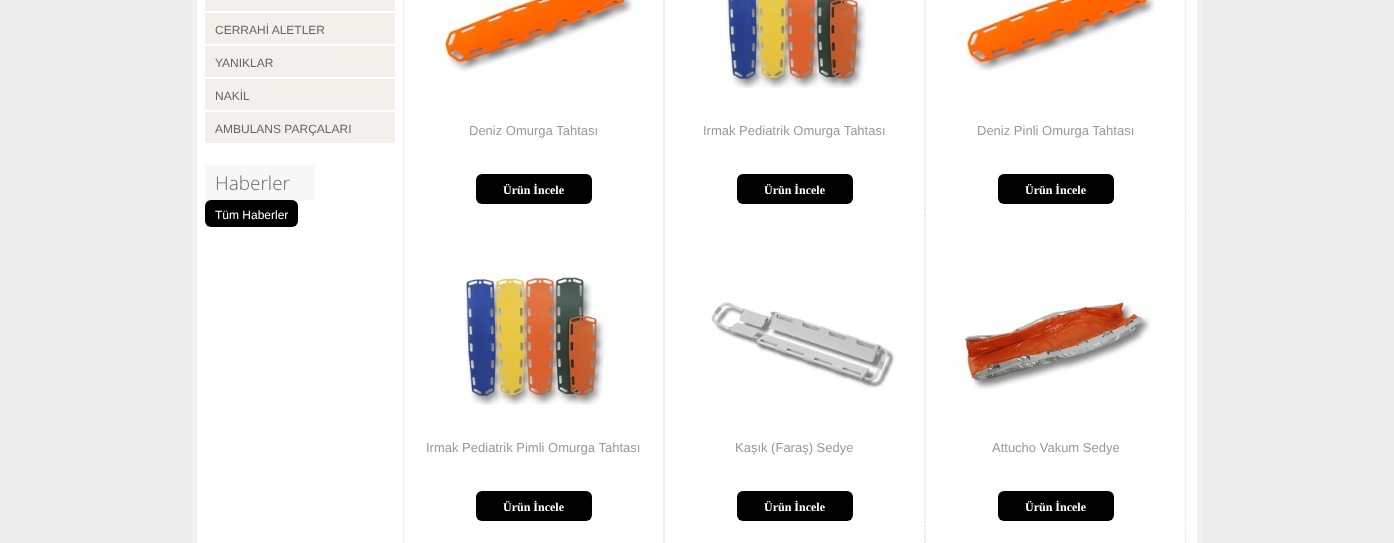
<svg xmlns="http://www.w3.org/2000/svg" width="1394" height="543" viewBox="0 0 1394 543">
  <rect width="100%" height="100%" fill="#ededed"/>
  <path d="M197 0h1000v543H197z" fill="#fff"/>
  <path d="M205 0h190v11H205z" fill="#f3efea"/>
  <path d="M205 13h190v31H205z" fill="#f3efea"/>
  <path d="M205 46h190v31H205z" fill="#f3efea"/>
  <path d="M205 79h190v31H205z" fill="#f3efea"/>
  <path d="M205 112h190v31H205z" fill="#f3efea"/>
  <path d="M205 165h110v35H205z" fill="#f7f7f7"/>
  <rect x="205" y="200" width="93" height="27" rx="6" fill="#000"/>
  <path d="M663.5-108V209" fill="none" stroke="#e4e4e4" stroke-dasharray="1 1"/>
  <path d="M403.5-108V209" fill="none" stroke="#e4e4e4" stroke-dasharray="1 1"/>
  <rect x="476" y="174" width="116" height="30" rx="6" fill="#000"/>
  <path d="M924.5-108V209" fill="none" stroke="#e4e4e4" stroke-dasharray="1 1"/>
  <path d="M664.5-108V209" fill="none" stroke="#e4e4e4" stroke-dasharray="1 1"/>
  <rect x="737" y="174" width="116" height="30" rx="6" fill="#000"/>
  <path d="M1185.5-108V209" fill="none" stroke="#e4e4e4" stroke-dasharray="1 1"/>
  <path d="M925.5-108V209" fill="none" stroke="#e4e4e4" stroke-dasharray="1 1"/>
  <rect x="998" y="174" width="116" height="30" rx="6" fill="#000"/>
  <path d="M663.5 209V526" fill="none" stroke="#e4e4e4" stroke-dasharray="1 1"/>
  <path d="M403.5 209V526" fill="none" stroke="#e4e4e4" stroke-dasharray="1 1"/>
  <rect x="476" y="491" width="116" height="30" rx="6" fill="#000"/>
  <path d="M924.5 209V526" fill="none" stroke="#e4e4e4" stroke-dasharray="1 1"/>
  <path d="M664.5 209V526" fill="none" stroke="#e4e4e4" stroke-dasharray="1 1"/>
  <rect x="737" y="491" width="116" height="30" rx="6" fill="#000"/>
  <path d="M1185.5 209V526" fill="none" stroke="#e4e4e4" stroke-dasharray="1 1"/>
  <path d="M925.5 209V526" fill="none" stroke="#e4e4e4" stroke-dasharray="1 1"/>
  <rect x="998" y="491" width="116" height="30" rx="6" fill="#000"/>
  <path d="M663.5 526V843" fill="none" stroke="#e4e4e4" stroke-dasharray="1 1"/>
  <path d="M403.5 526V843" fill="none" stroke="#e4e4e4" stroke-dasharray="1 1"/>
  <path d="M924.5 526V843" fill="none" stroke="#e4e4e4" stroke-dasharray="1 1"/>
  <path d="M664.5 526V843" fill="none" stroke="#e4e4e4" stroke-dasharray="1 1"/>
  <path d="M1185.5 526V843" fill="none" stroke="#e4e4e4" stroke-dasharray="1 1"/>
  <path d="M925.5 526V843" fill="none" stroke="#e4e4e4" stroke-dasharray="1 1"/>
  <path d="M194.5 -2.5h1005v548H194.5z" fill="none" stroke="#f2f2f2" stroke-width="5"/>
  <image x="434" y="0" width="200" height="72" href="img/1.png"/>
  <image x="726" y="0" width="142" height="88" href="img/2.png"/>
  <image x="956" y="0" width="199" height="71" href="img/3.png"/>
  <image x="465" y="273" width="143" height="132" href="img/4.png"/>
  <image x="711" y="299" width="184" height="89" href="img/5.png"/>
  <image x="956" y="289" width="195" height="101" href="img/6.png"/>
  <g font-family="Liberation Sans" font-size="12" fill="#666">
    <text x="215" y="34">CERRAHİ ALETLER</text>
    <text x="215" y="67">YANIKLAR</text>
    <text x="215" y="100">NAKİL</text>
    <text x="215" y="133">AMBULANS PARÇALARI</text>
  </g>
  <text x="215" y="190" font-family="Open Sans" font-size="19" font-weight="300" fill="#666">Haberler</text>
  <text x="215" y="219" font-family="Liberation Sans" font-size="12" fill="#fff">Tüm Haberler</text>
  <text x="469" y="135" font-family="Liberation Sans" font-size="13" fill="#999">Deniz Omurga Tahtası</text>
  <text x="503" y="194" font-family="Liberation Serif" font-size="12" font-weight="bold" fill="#fff">Ürün İncele</text>
  <text x="703" y="135" font-family="Liberation Sans" font-size="13" fill="#999">Irmak Pediatrik Omurga Tahtası</text>
  <text x="764" y="194" font-family="Liberation Serif" font-size="12" font-weight="bold" fill="#fff">Ürün İncele</text>
  <text x="977" y="135" font-family="Liberation Sans" font-size="13" fill="#999">Deniz Pinli Omurga Tahtası</text>
  <text x="1025" y="194" font-family="Liberation Serif" font-size="12" font-weight="bold" fill="#fff">Ürün İncele</text>
  <text x="426" y="452" font-family="Liberation Sans" font-size="13" fill="#999">Irmak Pediatrik Pimli Omurga Tahtası</text>
  <text x="503" y="511" font-family="Liberation Serif" font-size="12" font-weight="bold" fill="#fff">Ürün İncele</text>
  <text x="735" y="452" font-family="Liberation Sans" font-size="13" fill="#999">Kaşık (Faraş) Sedye</text>
  <text x="764" y="511" font-family="Liberation Serif" font-size="12" font-weight="bold" fill="#fff">Ürün İncele</text>
  <text x="992" y="452" font-family="Liberation Sans" font-size="13" fill="#999">Attucho Vakum Sedye</text>
  <text x="1025" y="511" font-family="Liberation Serif" font-size="12" font-weight="bold" fill="#fff">Ürün İncele</text>
</svg>
